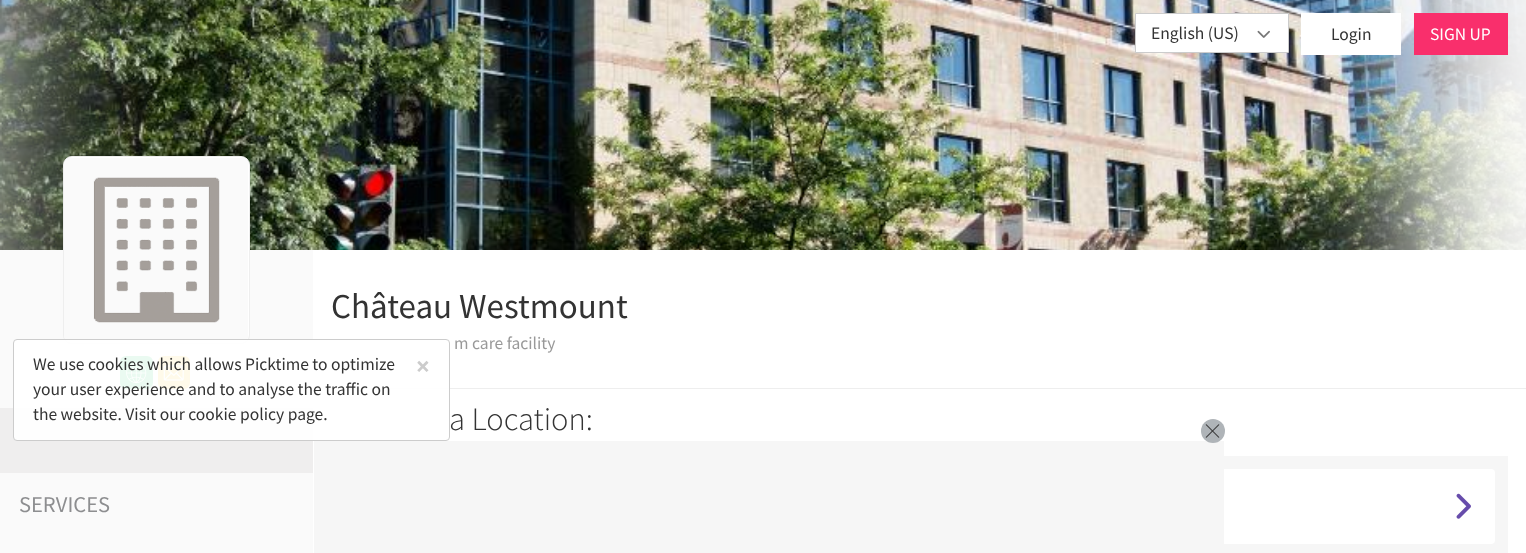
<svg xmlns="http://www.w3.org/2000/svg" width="1526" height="553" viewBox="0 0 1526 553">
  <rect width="100%" height="100%" fill="#fafafa"/>
  <image x="0" y="0" width="1526" height="250" href="img/1.png"/>
  <rect x="1135" y="13" width="154" height="40" rx="4" fill="#fff"/>
  <path d="M1135.5 13.5h153v39H1135.5z" fill="none" stroke="#ccc"/>
  <image x="1257" y="30" width="13" height="8" href="img/2.png"/>
  <path d="M1301 13h100v42H1301z" fill="#fff"/>
  <path d="M1414 13h94v42H1414z" fill="#f92f6c"/>
  <rect x="63.5" y="156.5" width="186" height="187" rx="8.5" fill="#fff" stroke="#eee"/>
  <image x="64" y="158" width="184" height="184" href="img/3.png"/>
  <path d="M313 250h1213v303H313z" fill="#fff"/>
  <path d="M313 388h1213v1H313z" fill="#eee"/>
  <rect x="120" y="356" width="33" height="33" rx="6" fill="#2ecc71"/>
  <image x="126" y="363" width="21" height="20" href="img/5.png"/>
  <rect x="158" y="356" width="32" height="33" rx="6" fill="#f7cc30"/>
  <image x="163" y="365" width="21" height="16" href="img/6.png"/>
  <path d="M0 408h313v65H0z" fill="#efeeee"/>
  <rect x="13.5" y="339.5" width="436" height="101" rx="3.5" fill="#ffffffe6" stroke="#ccc"/>
  <path d="M1224 456h284v97H1224z" fill="#f6f6f6"/>
  <rect x="344" y="469" width="1151" height="75" rx="4" fill="#fff"/>
  <image x="1456" y="493" width="15" height="26" href="img/4.png"/>
  <path d="M314 441h910v112H314z" fill="#f6f6f6"/>
  <circle cx="1213" cy="431" r="12" fill="#afb4b8"/>
  <image x="1205" y="424" width="15" height="14" href="img/7.png"/>
  <g font-family="Source Sans Pro" font-size="17.5" fill="#333">
    <text x="1151" y="39">English (US)</text>
    <text x="1331" y="40">Login</text>
  </g>
  <text x="1430" y="40" font-family="Source Sans Pro" font-size="17.5" fill="#fff">SIGN UP</text>
  <text x="33" y="370" font-family="Source Sans Pro" font-size="17.5" fill="#333">We use cookies which allows Picktime to optimize</text>
  <text x="416" y="375" font-family="Source Sans Pro" font-size="26" font-weight="bold" fill="#ccc">×</text>
  <g font-family="Source Sans Pro" font-size="17.5" fill="#333">
    <text x="33" y="395">your user experience and to analyse the traffic on</text>
    <text x="33" y="420">the website. Visit our cookie policy page.</text>
  </g>
  <text x="331" y="318" font-family="Source Sans Pro" font-size="35" fill="#333">Château Westmount</text>
  <text x="454" y="349" font-family="Source Sans Pro" font-size="17.5" fill="#999">m care facility</text>
  <text x="449" y="430" font-family="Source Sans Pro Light" font-size="32.5" font-weight="300" fill="#333">a Location:</text>
  <text x="19" y="512" font-family="Source Sans Pro" font-size="22.5" fill="#8d8e90">SERVICES</text>
</svg>
